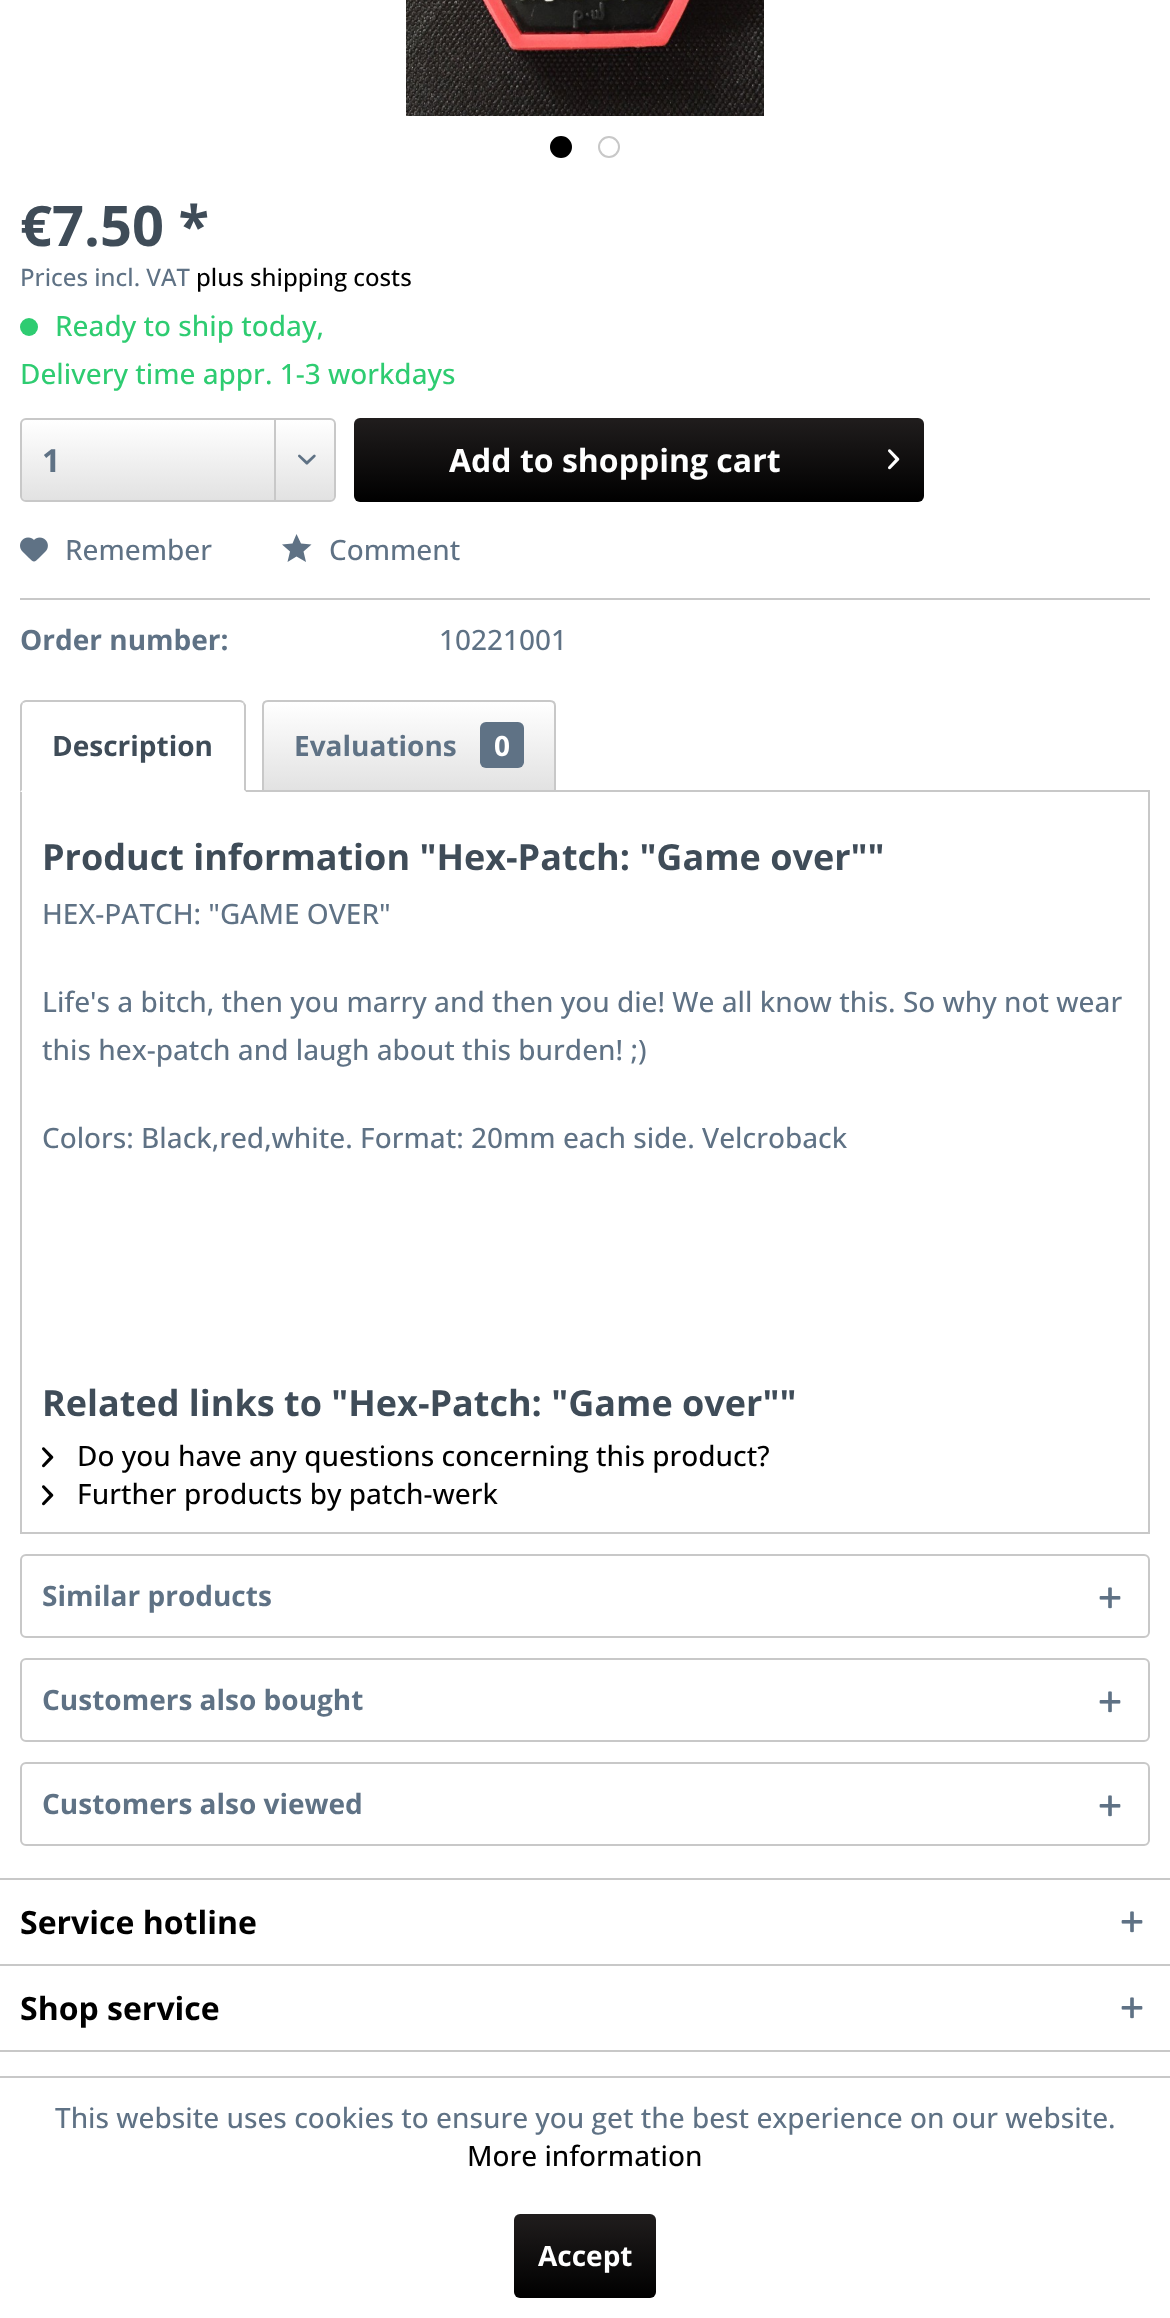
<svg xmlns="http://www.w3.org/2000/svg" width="1170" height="2318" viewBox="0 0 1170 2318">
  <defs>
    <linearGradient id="g1" gradientUnits="userSpaceOnUse" x1="178" y1="420" x2="178" y2="500"><stop offset="0" stop-color="#fff"/><stop offset="1" stop-color="#e2e2e2"/></linearGradient>
    <linearGradient id="g2" gradientUnits="userSpaceOnUse" x1="639" y1="418" x2="639" y2="502"><stop offset="0" stop-color="#201d1d"/><stop offset="1" stop-color="#000"/></linearGradient>
    <linearGradient id="g3" gradientUnits="userSpaceOnUse" x1="409" y1="702" x2="409" y2="790"><stop offset="0" stop-color="#fff"/><stop offset="1" stop-color="#e2e2e2"/></linearGradient>
    <linearGradient id="g4" gradientUnits="userSpaceOnUse" x1="585" y1="2214" x2="585" y2="2298"><stop offset="0" stop-color="#201d1d"/><stop offset="1" stop-color="#000"/></linearGradient>
  </defs>
  <rect width="100%" height="100%" fill="#fff"/>
  <image x="406" y="0" width="358" height="116" href="img/1.png"/>
  <circle cx="561" cy="147" r="10" fill="#000" stroke="#000" stroke-width="2"/>
  <circle cx="609" cy="147" r="10" fill="none" stroke="#c8c8c8" stroke-width="2"/>
  <circle cx="29" cy="327" r="9" fill="#2ecc71"/>
  <rect x="22" y="420" width="312" height="80" rx="4" fill="url(#g1)"/>
  <rect x="21" y="419" width="314" height="82" rx="5" fill="none" stroke="#c8c8c8" stroke-width="2"/>
  <path d="M274 420h2v80H274z" fill="#c8c8c8"/>
  <image x="298" y="454" width="18" height="11" href="img/2.png"/>
  <rect x="354" y="418" width="570" height="84" rx="6" fill="url(#g2)"/>
  <image x="888" y="449" width="12" height="21" href="img/3.png"/>
  <path d="M20 598h1130v2H20z" fill="#c8c8c8"/>
  <image x="20" y="537" width="28" height="25" href="img/4.png"/>
  <path d="M296.5 534L292.5 543.5L282 544.5L290 551.5L287.5 562L296.5 556.5L306 562L303.5 551.5L311.5 544.5L301 543.5Z" fill="#5f7285"/>
  <path d="M21 791h1128v742H21z" fill="none" stroke="#c8c8c8" stroke-width="2"/>
  <path d="M26 700H240C243.5 700 246 702.5 246 706V792H20V706C20 702.5 22.5 700 26 700Z" fill="#fff"/>
  <path d="M26 700C24 700 23 701 22 702L23 703L26 702H240L243 703L244 702C243 701 242 700 240 700Z" fill="#c8c8c8"/>
  <path d="M246 792V705L244 702L243 703L244 706V790Z" fill="#c8c8c8"/>
  <path d="M246 792L244 790H22L20 792Z" fill="#fff"/>
  <path d="M20 792L22 790V706L23 703L22 702C21 703 20 704 20 706Z" fill="#c8c8c8"/>
  <path d="M268 702H550C552 702 554 704 554 706V790H264V706C264 704 266 702 268 702Z" fill="url(#g3)"/>
  <path d="M268 701H550C553 701 555 703 555 706V791H263V706C263 703 265 701 268 701Z" fill="none" stroke="#c8c8c8" stroke-width="2"/>
  <rect x="480" y="722" width="44" height="46" rx="6" fill="#5f7285"/>
  <image x="42" y="1447" width="12" height="21" href="img/5.png"/>
  <image x="42" y="1485" width="12" height="21" href="img/5.png"/>
  <rect x="21" y="1555" width="1128" height="82" rx="5" fill="none" stroke="#c8c8c8" stroke-width="2"/>
  <image x="1099" y="1587" width="22" height="22" href="img/6.png"/>
  <rect x="21" y="1659" width="1128" height="82" rx="5" fill="none" stroke="#c8c8c8" stroke-width="2"/>
  <image x="1099" y="1691" width="22" height="22" href="img/6.png"/>
  <rect x="21" y="1763" width="1128" height="82" rx="5" fill="none" stroke="#c8c8c8" stroke-width="2"/>
  <image x="1099" y="1795" width="22" height="22" href="img/6.png"/>
  <path d="M0 1878h1170v2H0z" fill="#c8c8c8"/>
  <image x="1121" y="1911" width="22" height="22" href="img/6.png"/>
  <path d="M0 1964h1170v2H0z" fill="#c8c8c8"/>
  <image x="1121" y="1997" width="22" height="22" href="img/6.png"/>
  <path d="M0 2050h1170v2H0z" fill="#c8c8c8"/>
  <path d="M0 2076h1170v2H0z" fill="#c8c8c8"/>
  <rect x="514" y="2214" width="142" height="84" rx="6" fill="url(#g4)"/>
  <text x="20" y="246" font-family="Open Sans" font-size="56" font-weight="bold" fill="#3f4c58">€7.50 *</text>
  <text x="20" y="286" font-family="Open Sans" font-size="24" font-weight="500" fill="#5f7285">Prices incl. VAT</text>
  <text x="196" y="286" font-family="Open Sans" font-size="24" font-weight="500" fill="#000">plus shipping costs</text>
  <g font-family="Open Sans" font-size="28" font-weight="500" fill="#2ecc71">
    <text x="55" y="336">Ready to ship today,</text>
    <text x="20" y="384">Delivery time appr. 1-3 workdays</text>
  </g>
  <text x="42" y="472" font-family="Open Sans" font-size="32" font-weight="bold" fill="#5f7285">1</text>
  <text x="449" y="472" font-family="Open Sans" font-size="32" font-weight="bold" fill="#fff">Add to shopping cart</text>
  <g font-family="Open Sans" font-size="28" font-weight="500" fill="#5f7285">
    <text x="65" y="560">Remember</text>
    <text x="329" y="560">Comment</text>
  </g>
  <text x="20" y="650" font-family="Open Sans" font-size="28" font-weight="bold" fill="#5f7285">Order number:</text>
  <text x="439" y="650" font-family="Open Sans" font-size="28" font-weight="500" fill="#5f7285">10221001</text>
  <text x="52" y="756" font-family="Open Sans" font-size="28" font-weight="bold" fill="#3f4c58">Description</text>
  <text x="294" y="756" font-family="Open Sans" font-size="28" font-weight="bold" fill="#5f7285">Evaluations</text>
  <text x="494" y="756" font-family="Open Sans" font-size="28" font-weight="bold" fill="#fff">0</text>
  <text x="42" y="870" font-family="Open Sans" font-size="36" font-weight="bold" fill="#3f4c58">Product information "Hex-Patch: "Game over""</text>
  <g font-family="Open Sans" font-size="28" font-weight="500" fill="#5f7285">
    <text x="42" y="924">HEX-PATCH: "GAME OVER"</text>
    <text x="42" y="1012">Life's a bitch, then you marry and then you die! We all know this. So why not wear</text>
    <text x="42" y="1060">this hex-patch and laugh about this burden! ;)</text>
    <text x="42" y="1148">Colors: Black,red,white. Format: 20mm each side. Velcroback</text>
  </g>
  <text x="42" y="1416" font-family="Open Sans" font-size="36" font-weight="bold" fill="#3f4c58">Related links to "Hex-Patch: "Game over""</text>
  <g font-family="Open Sans" font-size="28" font-weight="500" fill="#000">
    <text x="77" y="1466">Do you have any questions concerning this product?</text>
    <text x="77" y="1504">Further products by patch-werk</text>
  </g>
  <g font-family="Open Sans" font-size="28" font-weight="bold" fill="#5f7285">
    <text x="42" y="1606">Similar products</text>
    <text x="42" y="1710">Customers also bought</text>
    <text x="42" y="1814">Customers also viewed</text>
  </g>
  <g font-family="Open Sans" font-size="32" font-weight="bold" fill="#000">
    <text x="20" y="1934">Service hotline</text>
    <text x="20" y="2020">Shop service</text>
  </g>
  <text x="55" y="2128" font-family="Open Sans" font-size="28" font-weight="500" fill="#5f7285">This website uses cookies to ensure you get the best experience on our website.</text>
  <text x="467" y="2166" font-family="Open Sans" font-size="28" font-weight="500" fill="#000">More information</text>
  <text x="538" y="2266" font-family="Open Sans" font-size="28" font-weight="bold" fill="#fff">Accept</text>
</svg>
